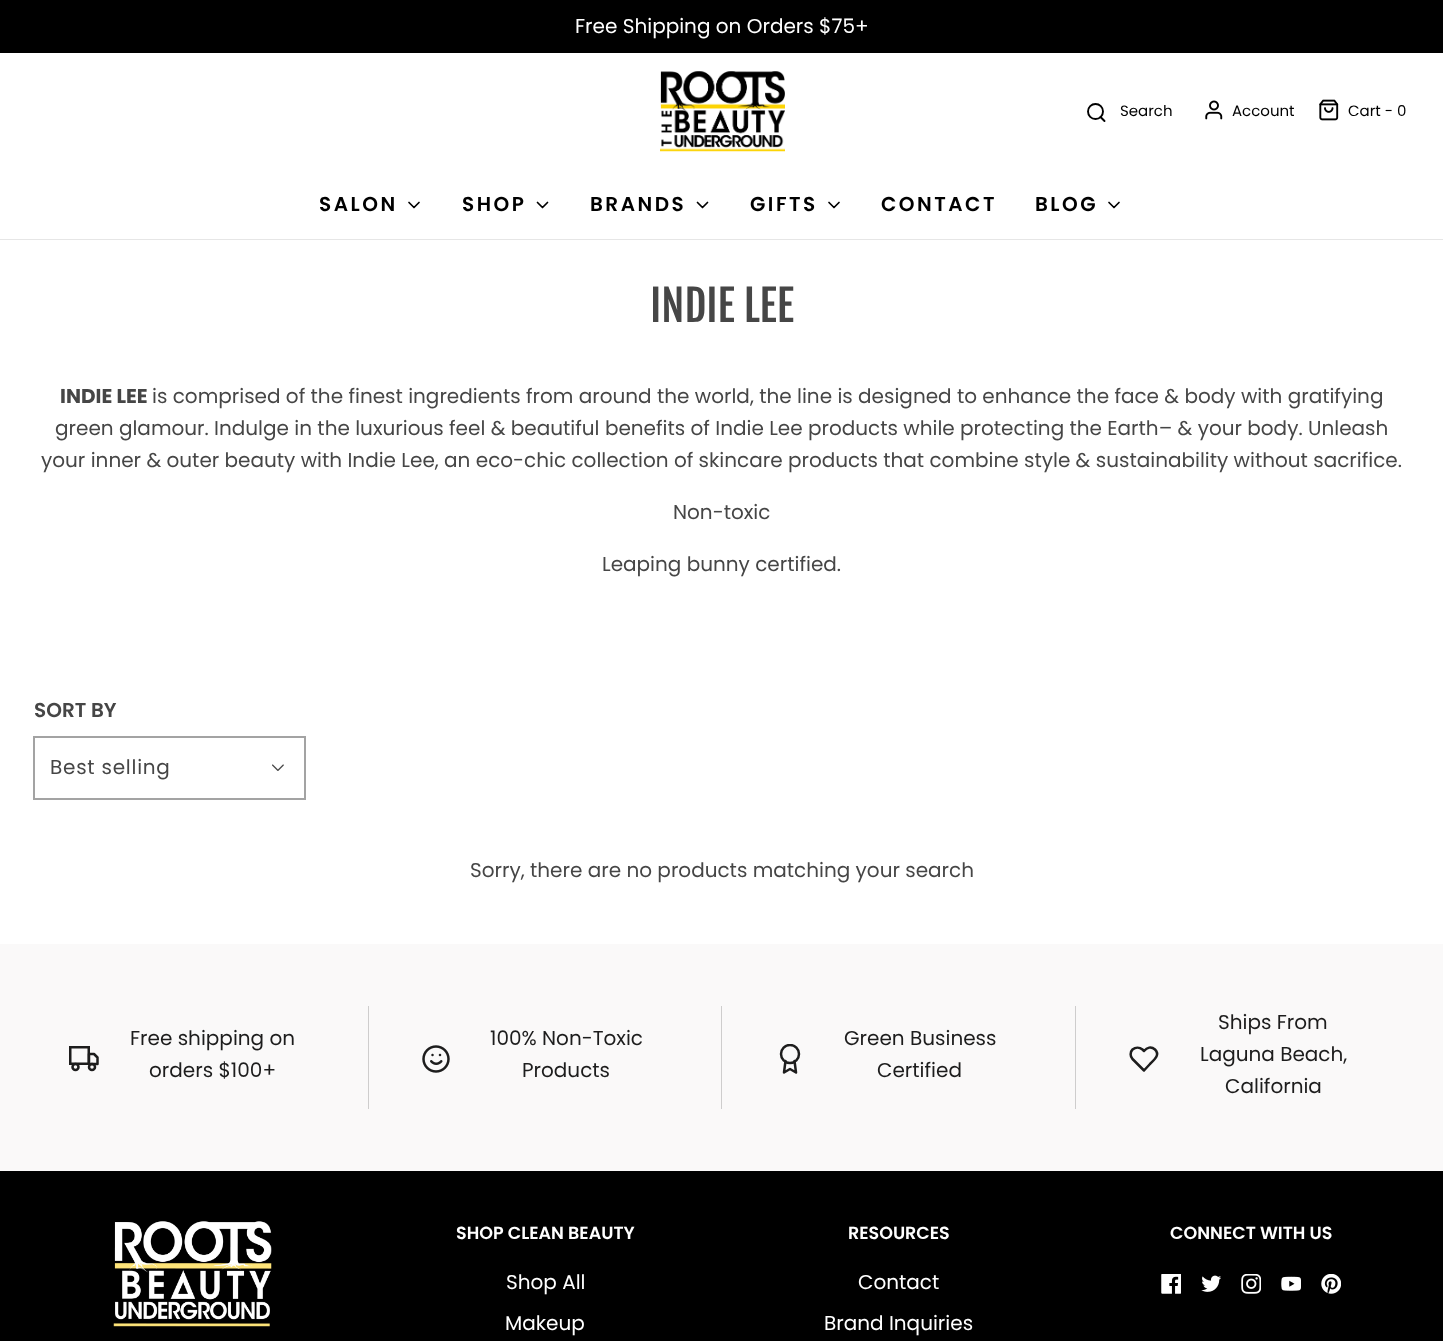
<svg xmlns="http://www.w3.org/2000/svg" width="1443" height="1341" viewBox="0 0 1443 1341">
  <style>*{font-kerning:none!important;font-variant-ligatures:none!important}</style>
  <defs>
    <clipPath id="clip1"><path d="M775 1044h30v30H775z"/></clipPath>
  </defs>
  <rect width="100%" height="100%" fill="#fff"/>
  <path d="M0 0h1443v53H0z" fill="#000"/>
  <path d="M0 239h1443v1H0z" fill="#e6e6e6"/>
  <image x="660" y="71" width="125" height="81" href="img/1.png"/>
  <circle cx="1095.5" cy="111.5" r="7.5" fill="none" stroke="#000" stroke-width="1.9"/>
  <path d="M1104.5 121L1100.5 117" fill="none" stroke="#000" stroke-width="1.9" stroke-linecap="round" stroke-linejoin="round"/>
  <image x="1205" y="100" width="18" height="20" href="img/2.png"/>
  <image x="1319" y="99" width="20" height="22" href="img/3.png"/>
  <path d="M409 202.5L414 207.5L419 202.5" fill="none" stroke="#000" stroke-width="1.7" stroke-linecap="round" stroke-linejoin="round"/>
  <path d="M537.5 202.5L542.5 207.5L547.5 202.5" fill="none" stroke="#000" stroke-width="1.7" stroke-linecap="round" stroke-linejoin="round"/>
  <path d="M697.5 202.5L702.5 207.5L707.5 202.5" fill="none" stroke="#000" stroke-width="1.7" stroke-linecap="round" stroke-linejoin="round"/>
  <path d="M829 202.5L834 207.5L839 202.5" fill="none" stroke="#000" stroke-width="1.7" stroke-linecap="round" stroke-linejoin="round"/>
  <path d="M1109 202.5L1114 207.5L1119 202.5" fill="none" stroke="#000" stroke-width="1.7" stroke-linecap="round" stroke-linejoin="round"/>
  <path d="M34 737h271v62H34z" fill="none" stroke="#a3a3a3" stroke-width="2"/>
  <image x="272" y="764" width="12" height="7" href="img/4.png"/>
  <path d="M0 944h1443v227H0z" fill="#faf9f9"/>
  <path d="M70.25 1047.25h18.5v16.5H70.25z" fill="none" stroke="#1d1d1d" stroke-width="2.5"/>
  <path d="M89 1054H94L97.5 1057.5V1064H89Z" fill="none" stroke="#1d1d1d" stroke-width="2.5" stroke-linecap="round" stroke-linejoin="round"/>
  <circle cx="75.5" cy="1067" r="3" fill="none" stroke="#1d1d1d" stroke-width="2.5"/>
  <circle cx="92" cy="1067" r="3" fill="none" stroke="#1d1d1d" stroke-width="2.5"/>
  <path d="M368 1006h1v103H368z" fill="#cecdcd"/>
  <image x="422" y="1045" width="28" height="28" href="img/5.png"/>
  <path d="M721 1006h1v103H721z" fill="#cecdcd"/>
  <g clip-path="url(#clip1)">
    <circle cx="790" cy="1054" r="9" fill="none" stroke="#1d1d1d" stroke-width="2.5"/>
  </g>
  <path d="M785.5 1061L784 1072.5L790 1069L796 1072.5L794.5 1061" fill="none" stroke="#1d1d1d" stroke-width="2.5" stroke-linecap="round" stroke-linejoin="round"/>
  <path d="M1075 1006h1v103H1075z" fill="#cecdcd"/>
  <path d="M1155 1049.5C1151 1046 1147 1047.5 1144 1051L1142.5 1049.5C1139.5 1047 1135.5 1047 1132.5 1049.5C1130 1052 1130 1056.5 1132.5 1059L1144 1070.5L1150 1064C1154 1060 1160.5 1055 1155 1049.5Z" fill="none" stroke="#1d1d1d" stroke-width="2.5" stroke-linecap="round" stroke-linejoin="round"/>
  <path d="M0 1171h1443v170H0z" fill="#000"/>
  <image x="113" y="1221" width="159" height="106" href="img/6.png"/>
  <image x="1161" y="1274" width="20" height="20" href="img/7.png"/>
  <image x="1201" y="1275" width="20" height="17" href="img/8.png"/>
  <image x="1241" y="1274" width="20" height="20" href="img/9.png"/>
  <image x="1281" y="1276" width="20" height="15" href="img/10.png"/>
  <image x="1321" y="1274" width="20" height="20" href="img/11.png"/>
  <text x="575" y="33" font-family="Poppins" font-size="20" fill="#fff">Free Shipping on Orders $75+</text>
  <g font-family="Poppins" font-size="15" fill="#000">
    <text x="1120" y="116">Search</text>
    <text x="1232" y="116">Account</text>
    <text x="1348" y="116">Cart - 0</text>
  </g>
  <g font-family="Poppins" font-size="20" font-weight="600" letter-spacing="2.5" fill="#000">
    <text x="319" y="211">SALON</text>
    <text x="462" y="211">SHOP</text>
    <text x="590" y="211">BRANDS</text>
    <text x="750" y="211">GIFTS</text>
    <text x="881" y="211">CONTACT</text>
    <text x="1035" y="211">BLOG</text>
  </g>
  <text x="650" y="322" font-family="Fjalla One" font-size="42.5" fill="#464646">INDIE LEE</text>
  <text x="60" y="403" font-family="Poppins" font-size="20" font-weight="bold" fill="#464646">INDIE LEE</text>
  <g font-family="Poppins" font-size="20" fill="#464646">
    <text x="152" y="403">is comprised of the finest ingredients from around the world, the line is designed to enhance the face &amp; body with gratifying</text>
    <text x="55" y="435">green glamour. Indulge in the luxurious feel &amp; beautiful benefits of Indie Lee products while protecting the Earth– &amp; your body. Unleash</text>
    <text x="41" y="467">your inner &amp; outer beauty with Indie Lee, an eco-chic collection of skincare products that combine style &amp; sustainability without sacrifice.</text>
    <text x="673" y="519">Non-toxic</text>
    <text x="602" y="571">Leaping bunny certified.</text>
  </g>
  <text x="34" y="717" font-family="Poppins" font-size="20" font-weight="600" fill="#464646">SORT BY</text>
  <text x="50" y="774" font-family="Poppins" font-size="20" letter-spacing="0.75" fill="#464646">Best selling</text>
  <text x="470" y="877" font-family="Poppins" font-size="20" fill="#464646">Sorry, there are no products matching your search</text>
  <g font-family="Poppins" font-size="20" fill="#1d1d1d">
    <text x="130" y="1045">Free shipping on</text>
    <text x="149" y="1077">orders $100+</text>
    <text x="490" y="1045">100% Non-Toxic</text>
    <text x="522" y="1077">Products</text>
    <text x="844" y="1045">Green Business</text>
    <text x="877" y="1077">Certified</text>
    <text x="1218" y="1029">Ships From</text>
    <text x="1200" y="1061">Laguna Beach,</text>
    <text x="1225" y="1093">California</text>
  </g>
  <text x="456" y="1239" font-family="Poppins" font-size="17.5" font-weight="600" fill="#fff">SHOP CLEAN BEAUTY</text>
  <g font-family="Poppins" font-size="20" fill="#fff">
    <text x="506" y="1289">Shop All</text>
    <text x="505" y="1330">Makeup</text>
  </g>
  <text x="848" y="1239" font-family="Poppins" font-size="17.5" font-weight="600" fill="#fff">RESOURCES</text>
  <g font-family="Poppins" font-size="20" fill="#fff">
    <text x="858" y="1289">Contact</text>
    <text x="824" y="1330">Brand Inquiries</text>
  </g>
  <text x="1170" y="1239" font-family="Poppins" font-size="17.5" font-weight="600" fill="#fff">CONNECT WITH US</text>
</svg>
